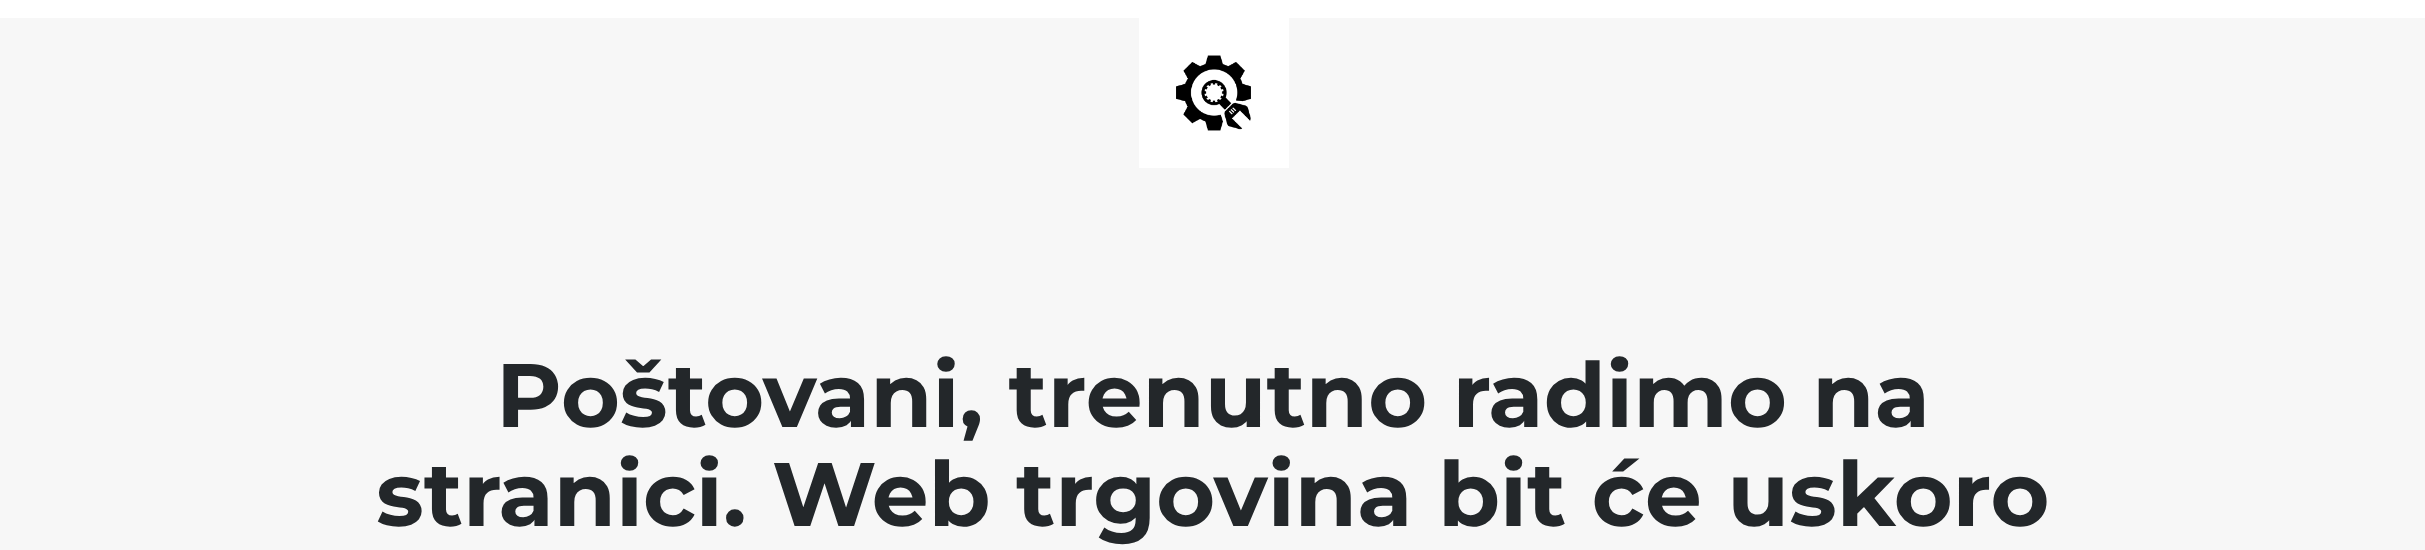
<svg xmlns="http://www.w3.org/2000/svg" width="2425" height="550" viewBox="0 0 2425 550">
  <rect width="100%" height="100%" fill="#f7f7f7"/>
  <path d="M0 0h2425v18H0z" fill="#fff"/>
  <path d="M1139 18h150v150H1139z" fill="#fff"/>
  <image x="1176" y="55" width="75" height="76" href="img/1.png"/>
  <g font-family="Montserrat" font-size="90" font-weight="100" fill="#23272a">
    <text x="496" y="427">Poštovani, trenutno radimo na</text>
    <text x="376" y="526">stranici. Web trgovina bit će uskoro</text>
  </g>
</svg>
